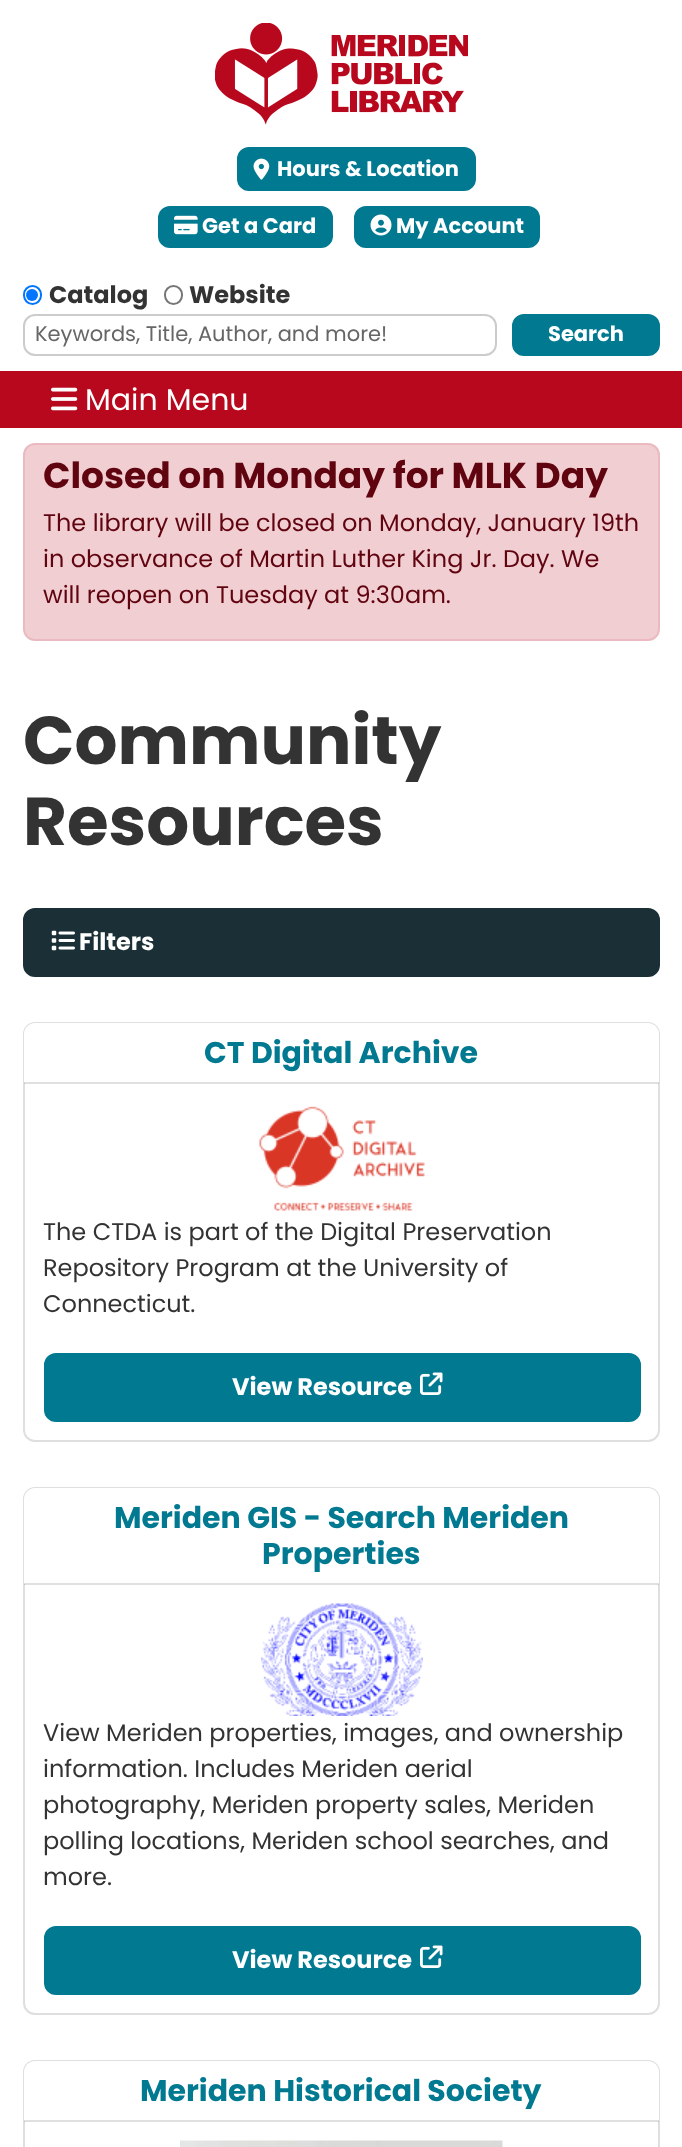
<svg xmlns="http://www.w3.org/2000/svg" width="682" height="2147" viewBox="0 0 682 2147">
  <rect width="100%" height="100%" fill="#fff"/>
  <image x="215" y="23" width="253" height="102" href="img/1.png"/>
  <rect x="238" y="148" width="237" height="42" rx="11" fill="#007991" stroke="#007991" stroke-width="2"/>
  <image x="253" y="158" width="17" height="22" href="img/2.png"/>
  <rect x="159" y="207" width="173" height="40" rx="11" fill="#007991" stroke="#007991" stroke-width="2"/>
  <image x="174" y="215" width="24" height="20" href="img/3.png"/>
  <rect x="355" y="207" width="184" height="40" rx="11" fill="#007991" stroke="#007991" stroke-width="2"/>
  <image x="370" y="214" width="22" height="22" href="img/4.png"/>
  <rect x="24" y="286" width="17" height="18" rx="8.5" fill="none" stroke="#0075ff" stroke-width="2"/>
  <circle cx="32" cy="295" r="6" fill="#0075ff"/>
  <rect x="165" y="286" width="17" height="18" rx="8.5" fill="none" stroke="#767676" stroke-width="2"/>
  <rect x="24" y="315" width="472" height="40" rx="11" fill="none" stroke="#ccc" stroke-width="2"/>
  <rect x="513" y="315" width="146" height="40" rx="11" fill="#007991" stroke="#007991" stroke-width="2"/>
  <path d="M0 371h682v57H0z" fill="#b8081d"/>
  <image x="51" y="387" width="27" height="24" href="img/5.png"/>
  <rect x="24" y="444" width="635" height="196" rx="11" fill="#f1ced2" stroke="#ebbac0" stroke-width="2"/>
  <rect x="24" y="909" width="635" height="67" rx="11" fill="#1a2f36" stroke="#1a2f36" stroke-width="2"/>
  <image x="51" y="930" width="24" height="21" href="img/6.png"/>
  <rect x="24" y="1023" width="635" height="418" rx="11" fill="none" stroke="#dfdfdf" stroke-width="2"/>
  <path d="M35 1023H648C654 1023 659 1028 659 1034V1083H24V1034C24 1028 29 1023 35 1023Z" fill="#fff"/>
  <path d="M24 1082h635v2H24z" fill="#0000001f"/>
  <image x="259" y="1106" width="166" height="105" href="img/7.png"/>
  <rect x="45" y="1354" width="595" height="67" rx="11" fill="#007991" stroke="#007991" stroke-width="2"/>
  <image x="420" y="1372" width="23" height="23" href="img/8.png"/>
  <rect x="24" y="1488" width="635" height="526" rx="11" fill="none" stroke="#dfdfdf" stroke-width="2"/>
  <path d="M35 1488H648C654 1488 659 1493 659 1499V1584H24V1499C24 1493 29 1488 35 1488Z" fill="#fff"/>
  <path d="M24 1583h635v2H24z" fill="#0000001f"/>
  <image x="261" y="1603" width="162" height="113" href="img/9.png"/>
  <rect x="45" y="1927" width="595" height="67" rx="11" fill="#007991" stroke="#007991" stroke-width="2"/>
  <image x="420" y="1945" width="23" height="23" href="img/8.png"/>
  <rect x="24" y="2061" width="635" height="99" rx="11" fill="none" stroke="#dfdfdf" stroke-width="2"/>
  <path d="M35 2061H648C654 2061 659 2066 659 2072V2121H24V2072C24 2066 29 2061 35 2061Z" fill="#fff"/>
  <path d="M24 2120h635v2H24z" fill="#0000001f"/>
  <image x="180" y="2140" width="323" height="7" href="img/10.png"/>
  <g font-family="Poppins" font-size="21" font-weight="bold" fill="#fff">
    <text x="277" y="176">Hours &amp; Location</text>
    <text x="202" y="233">Get a Card</text>
    <text x="396" y="233">My Account</text>
  </g>
  <g font-family="Poppins" font-size="24" font-weight="bold" fill="#333">
    <text x="49" y="303">Catalog</text>
    <text x="189" y="303">Website</text>
  </g>
  <text x="35" y="341" font-family="Poppins" font-size="21" fill="#666">Keywords, Title, Author, and more!</text>
  <text x="548" y="341" font-family="Poppins" font-size="21" font-weight="bold" fill="#fff">Search</text>
  <text x="85" y="410" font-family="Poppins" font-size="30" fill="#fff">Main Menu</text>
  <text x="43" y="488" font-family="Poppins" font-size="36" font-weight="bold" fill="#60040f">Closed on Monday for MLK Day</text>
  <g font-family="Poppins" font-size="24" fill="#60040f">
    <text x="43" y="531">The library will be closed on Monday, January 19th</text>
    <text x="43" y="567">in observance of Martin Luther King Jr. Day. We</text>
    <text x="43" y="603">will reopen on Tuesday at 9:30am.</text>
  </g>
  <g font-family="Poppins" font-size="67.5" font-weight="bold" fill="#333">
    <text x="23" y="764">Community</text>
    <text x="23" y="845">Resources</text>
  </g>
  <text x="79" y="950" font-family="Poppins" font-size="24" font-weight="bold" fill="#fff">Filters</text>
  <text x="204" y="1063" font-family="Poppins" font-size="30" font-weight="bold" fill="#007991">CT Digital Archive</text>
  <g font-family="Poppins" font-size="24" fill="#333">
    <text x="43" y="1240">The CTDA is part of the Digital Preservation</text>
    <text x="43" y="1276">Repository Program at the University of</text>
    <text x="43" y="1312">Connecticut.</text>
  </g>
  <text x="232" y="1395" font-family="Poppins" font-size="24" font-weight="bold" fill="#fff">View Resource</text>
  <g font-family="Poppins" font-size="30" font-weight="bold" fill="#007991">
    <text x="114" y="1528">Meriden GIS - Search Meriden</text>
    <text x="262" y="1564">Properties</text>
  </g>
  <g font-family="Poppins" font-size="24" fill="#333">
    <text x="43" y="1741">View Meriden properties, images, and ownership</text>
    <text x="43" y="1777">information. Includes Meriden aerial</text>
    <text x="43" y="1813">photography, Meriden property sales, Meriden</text>
    <text x="43" y="1849">polling locations, Meriden school searches, and</text>
    <text x="43" y="1885">more.</text>
  </g>
  <text x="232" y="1968" font-family="Poppins" font-size="24" font-weight="bold" fill="#fff">View Resource</text>
  <text x="140" y="2101" font-family="Poppins" font-size="30" font-weight="bold" fill="#007991">Meriden Historical Society</text>
</svg>
